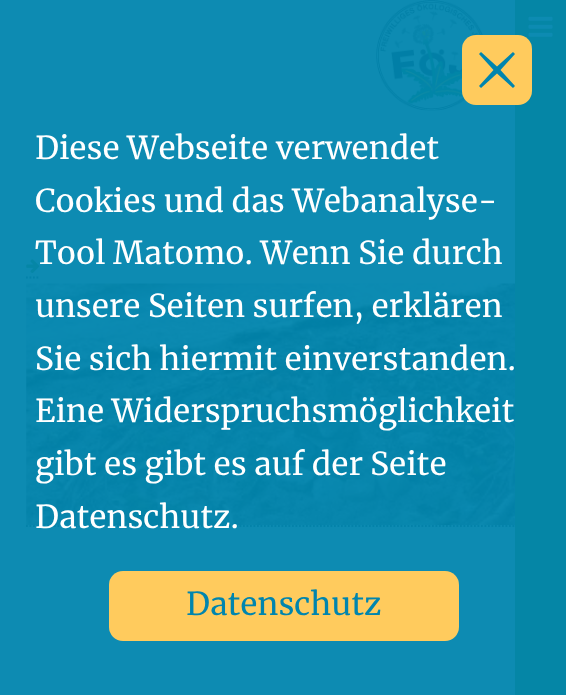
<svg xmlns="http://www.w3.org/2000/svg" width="566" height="695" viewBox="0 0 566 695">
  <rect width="100%" height="100%" fill="#0d8bb2"/>
  <path d="M26 526H551" fill="none" stroke="#0382a9" stroke-width="1.8" stroke-dasharray="1.75 1.75"/>
  <path d="M515 0h51v695H515z" fill="#0586a6"/>
  <image x="528" y="16" width="25" height="21" href="img/1.png"/>
  <path d="M26 277.5H40" fill="none" stroke="#0382a9" stroke-width="1.8" stroke-dasharray="1.75 1.75"/>
  <image x="26" y="259" width="14" height="14" href="img/2.png"/>
  <image x="26" y="283" width="489" height="242" href="img/3.png"/>
  <image x="376" y="0" width="107" height="111" href="img/4.png"/>
  <rect x="462" y="35" width="70" height="70" rx="14" fill="#ffcb5d"/>
  <path d="M514 87L515 86L500.5 70L515 54L513 52L497 66.5L481 52L479 54L493.5 70L479 86L481 88L497 73.5L513 88Z" fill="#0085ae"/>
  <rect x="109" y="571" width="350" height="70" rx="14" fill="#ffcb5d"/>
  <g font-family="Merriweather" font-size="31.5" fill="#fff">
    <text x="35" y="159">Diese Webseite verwendet</text>
    <text x="35" y="212">Cookies und das Webanalyse-</text>
    <text x="35" y="264">Tool Matomo. Wenn Sie durch</text>
    <text x="35" y="317">unsere Seiten surfen, erklären</text>
    <text x="35" y="370">Sie sich hiermit einverstanden.</text>
    <text x="35" y="422">Eine Widerspruchsmöglichkeit</text>
    <text x="35" y="475">gibt es gibt es auf der Seite</text>
    <text x="35" y="528">Datenschutz.</text>
  </g>
  <text x="186" y="615" font-family="Merriweather" font-size="31.5" fill="#0085ae">Datenschutz</text>
</svg>
